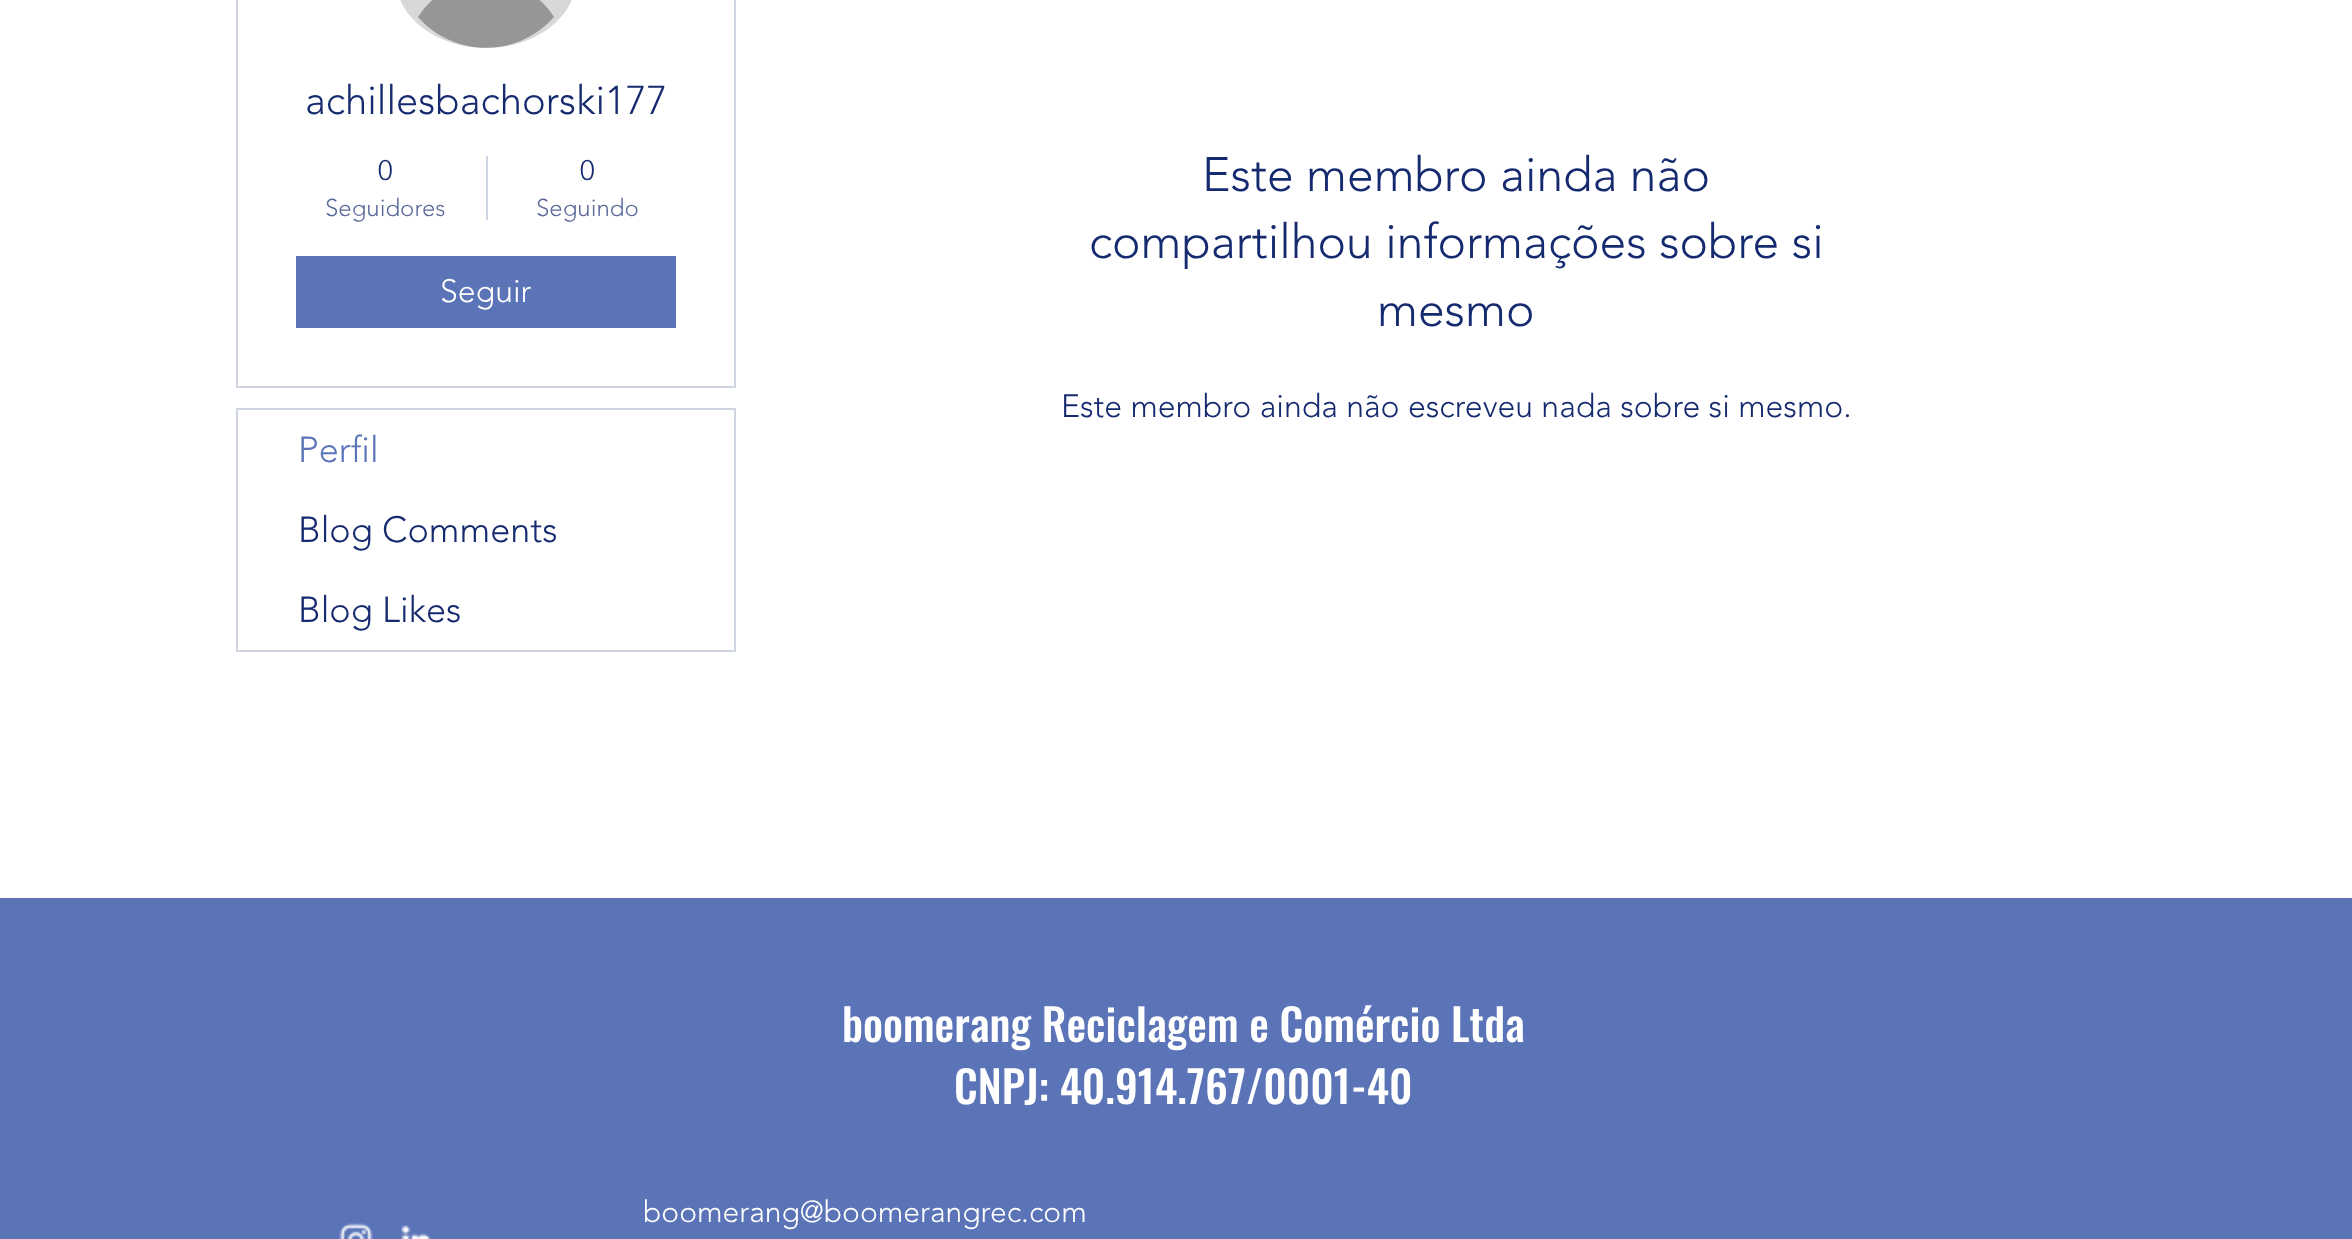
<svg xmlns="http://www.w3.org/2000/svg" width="2352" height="1239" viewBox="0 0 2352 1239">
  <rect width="100%" height="100%" fill="#fff"/>
  <path d="M237 -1h498v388H237z" fill="none" stroke="#d0d5e2" stroke-width="2"/>
  <rect x="396" y="-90" width="180" height="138" rx="90" fill="#d8d8d8"/>
  <path d="M554 17C518 58 454 58 418 17C450-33 522-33 554 17Z" fill="#969696"/>
  <path d="M486 156h2v64H486z" fill="#d0d5e2"/>
  <path d="M296 256h380v72H296z" fill="#5a74b7"/>
  <path d="M237 409h498v242H237z" fill="none" stroke="#d0d5e2" stroke-width="2"/>
  <path d="M0 898h2352v341H0z" fill="#5a74b7"/>
  <image x="339" y="1223" width="34" height="16" href="img/1.png"/>
  <image x="401" y="1225" width="30" height="14" href="img/2.png"/>
  <text x="305" y="114" font-family="'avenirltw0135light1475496'" font-size="40" font-weight="300" fill="#162b6f">achillesbachorski177</text>
  <text x="378" y="180" font-family="'avenirltw0135light1475496'" font-size="28" font-weight="300" fill="#162b6f">0</text>
  <text x="325" y="216" font-family="'avenirltw0135light1475496'" font-size="24" font-weight="300" fill="#5c6b9a">Seguidores</text>
  <text x="580" y="180" font-family="'avenirltw0135light1475496'" font-size="28" font-weight="300" fill="#162b6f">0</text>
  <text x="536" y="216" font-family="'avenirltw0135light1475496'" font-size="24" font-weight="300" fill="#5c6b9a">Seguindo</text>
  <text x="440" y="302" font-family="'avenirltw0135light1475496'" font-size="32" font-weight="300" fill="#fff">Seguir</text>
  <text x="298" y="462" font-family="'avenirltw0135light1475496'" font-size="36" font-weight="300" fill="#5a74b7">Perfil</text>
  <g font-family="'avenirltw0135light1475496'" font-size="36" font-weight="300" fill="#162b6f">
    <text x="298" y="542">Blog Comments</text>
    <text x="298" y="622">Blog Likes</text>
  </g>
  <g font-family="'avenirltw0135light1475496'" font-size="48" font-weight="300" fill="#162b6f">
    <text x="1202" y="191">Este membro ainda não</text>
    <text x="1089" y="258">compartilhou informações sobre si</text>
    <text x="1377" y="326">mesmo</text>
  </g>
  <text x="1061" y="417" font-family="'avenirltw0135light1475496'" font-size="32" font-weight="300" fill="#162b6f">Este membro ainda não escreveu nada sobre si mesmo.</text>
  <g font-family="Oswald" font-size="44" font-weight="500" fill="#fff">
    <text x="842" y="1042">boomerang Reciclagem e Comércio Ltda</text>
    <text x="954" y="1104">CNPJ: 40.914.767/0001-40</text>
  </g>
  <text x="643" y="1222" font-family="'avenirltw0135light1475496'" font-size="30" font-weight="300" fill="#fff">boomerang@boomerangrec.com</text>
</svg>
